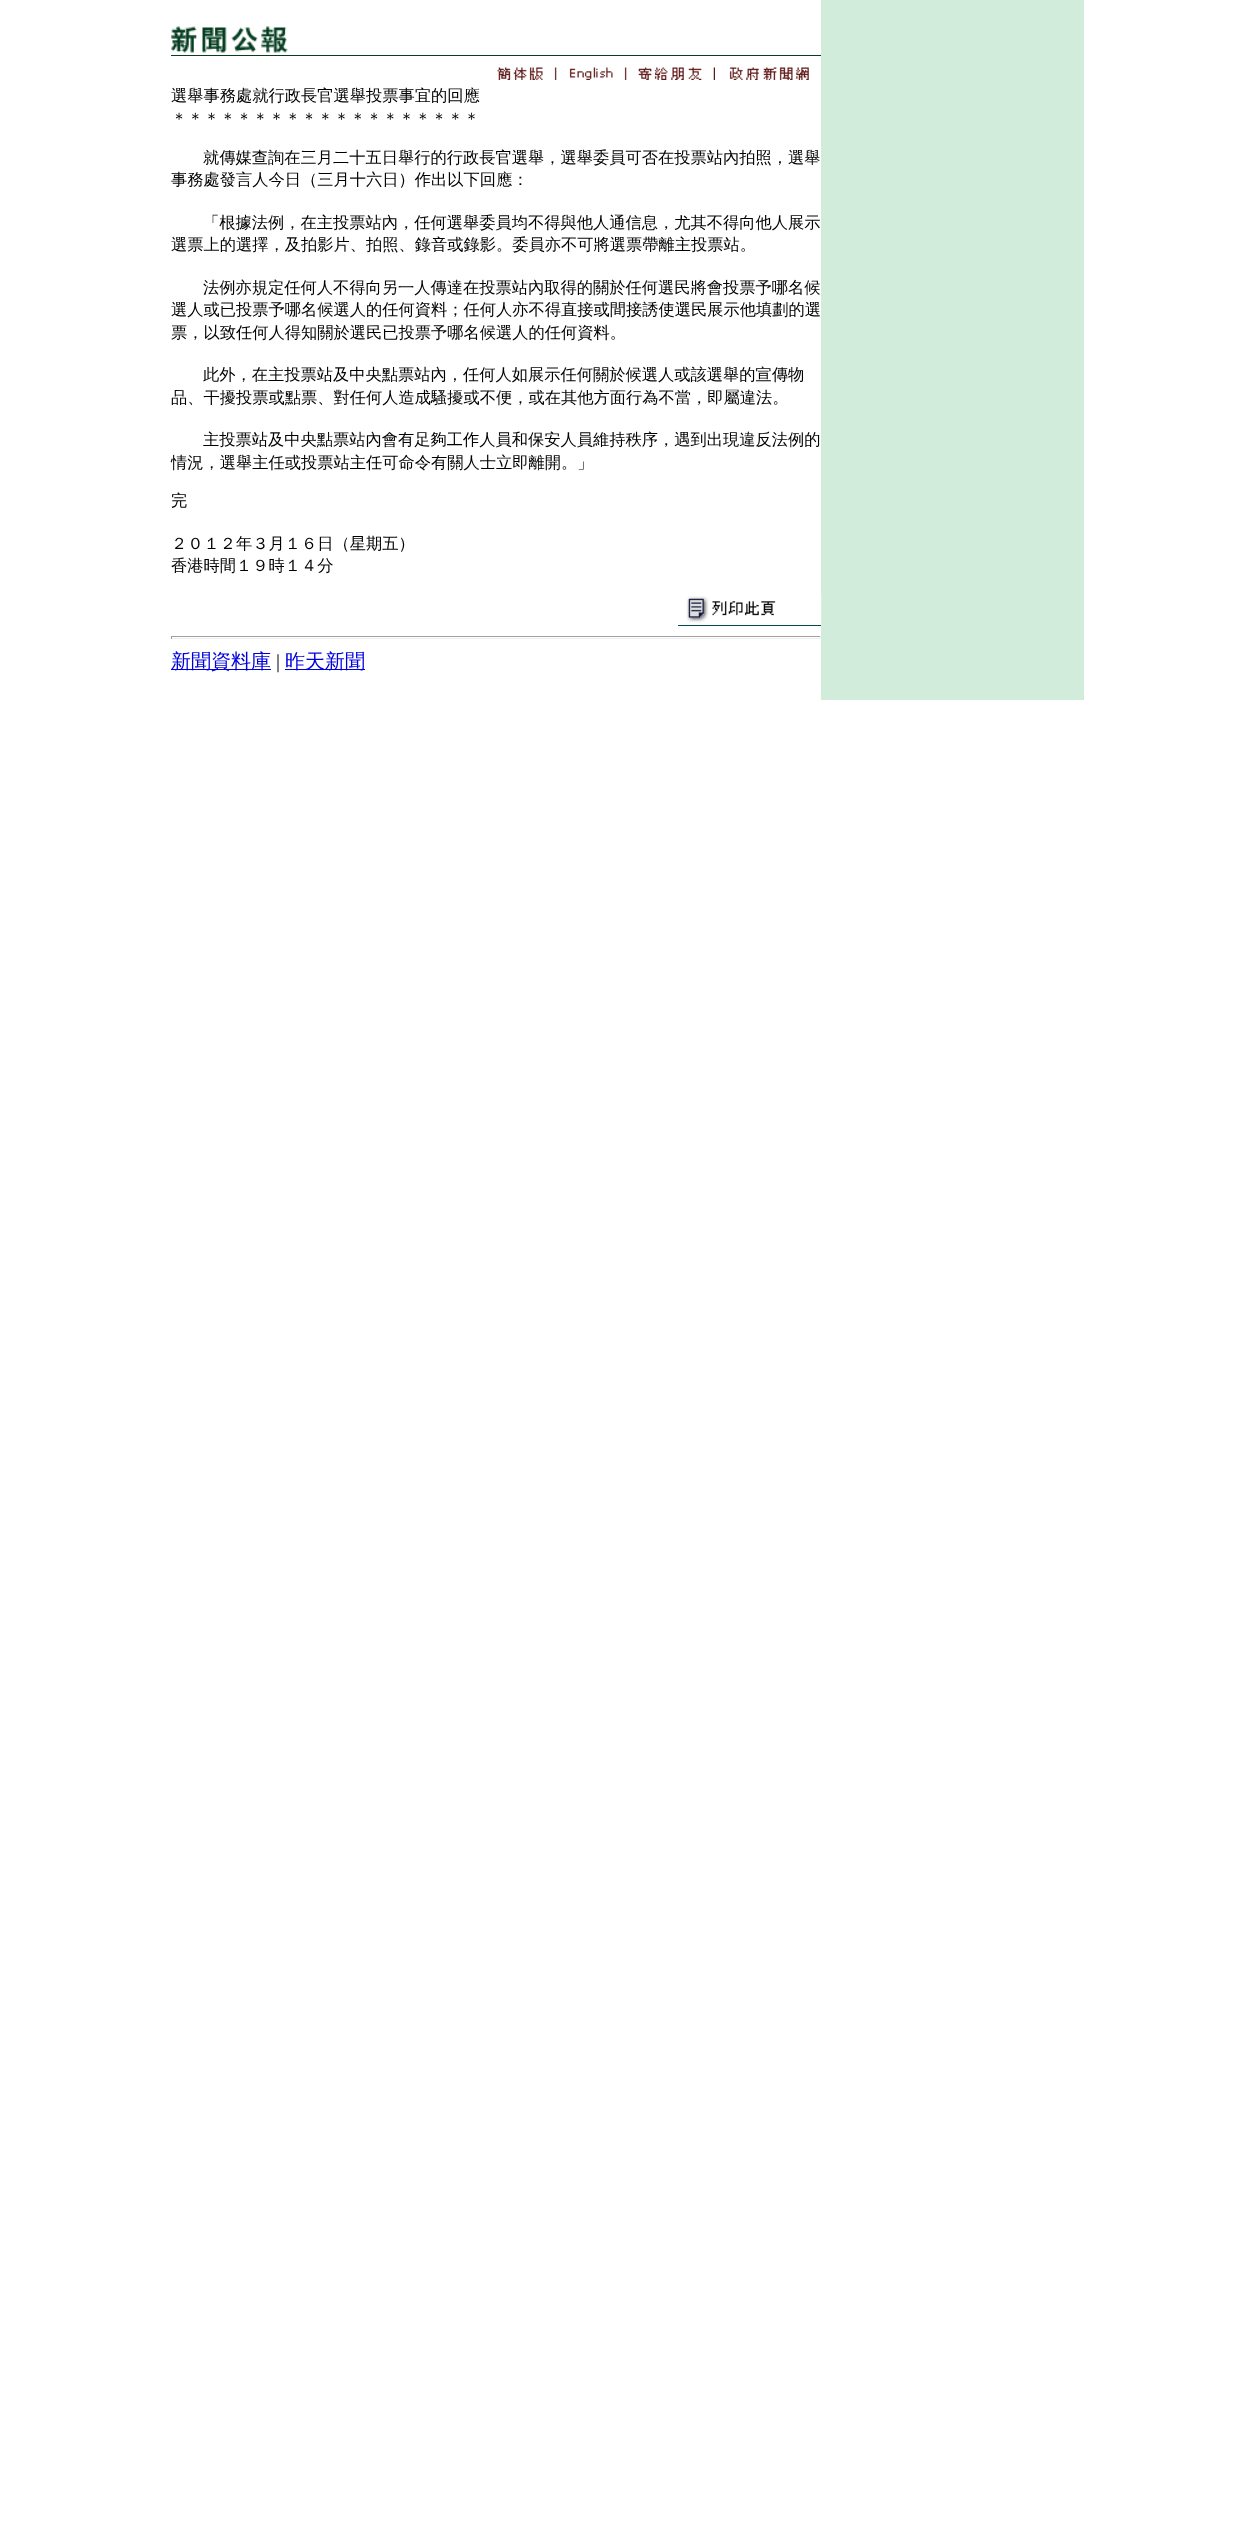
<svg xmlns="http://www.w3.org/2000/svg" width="1253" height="2533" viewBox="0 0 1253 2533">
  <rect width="100%" height="100%" fill="#fff"/>
  <path d="M821 0h263v700H821z" fill="#d1ecda"/>
  <path d="M171 55h650v1H171z" fill="#053e21"/>
  <image x="171" y="26" width="117" height="27" href="img/1.png"/>
  <image x="497" y="67" width="60" height="13" href="img/2.png"/>
  <image x="569" y="67" width="58" height="13" href="img/3.png"/>
  <image x="638" y="67" width="77" height="13" href="img/4.png"/>
  <image x="729" y="67" width="80" height="13" href="img/5.png"/>
  <image x="686" y="594" width="136" height="31" href="img/6.png"/>
  <path d="M678 625h143v1H678z" fill="#004f4e"/>
  <path d="M171 636h650v1H171z" fill="#9f9f9f"/>
  <path d="M820 636h1v3H820z" fill="#eee"/>
  <path d="M171 638h650v1H171z" fill="#eee"/>
  <path d="M171 636h1v3H171z" fill="#9f9f9f"/>
  <path d="M171 669h100v1H171z" fill="#00d"/>
  <path d="M285 669h80v1H285z" fill="#00d"/>
  <g font-family="WenQuanYi Zen Hei" font-size="16.25" font-weight="500" fill="#000">
    <text x="171" y="101">選舉事務處就行政長官選舉投票事宜的回應</text>
    <text x="171" y="124">＊＊＊＊＊＊＊＊＊＊＊＊＊＊＊＊＊＊＊</text>
    <text x="203" y="163">就傳媒查詢在三月二十五日舉行的行政長官選舉，選舉委員可否在投票站內拍照，選舉</text>
    <text x="171" y="185">事務處發言人今日（三月十六日）作出以下回應：</text>
    <text x="203" y="228">「根據法例，在主投票站內，任何選舉委員均不得與他人通信息，尤其不得向他人展示</text>
    <text x="171" y="250">選票上的選擇，及拍影片、拍照、錄音或錄影。委員亦不可將選票帶離主投票站。</text>
    <text x="203" y="293">法例亦規定任何人不得向另一人傳達在投票站內取得的關於任何選民將會投票予哪名候</text>
    <text x="171" y="315">選人或已投票予哪名候選人的任何資料；任何人亦不得直接或間接誘使選民展示他填劃的選</text>
    <text x="171" y="338">票，以致任何人得知關於選民已投票予哪名候選人的任何資料。</text>
    <text x="203" y="380">此外，在主投票站及中央點票站內，任何人如展示任何關於候選人或該選舉的宣傳物</text>
    <text x="171" y="403">品、干擾投票或點票、對任何人造成騷擾或不便，或在其他方面行為不當，即屬違法。</text>
    <text x="203" y="445">主投票站及中央點票站內會有足夠工作人員和保安人員維持秩序，遇到出現違反法例的</text>
    <text x="171" y="468">情況，選舉主任或投票站主任可命令有關人士立即離開。」</text>
    <text x="171" y="506">完</text>
    <text x="171" y="549">２０１２年３月１６日（星期五）</text>
    <text x="171" y="571">香港時間１９時１４分</text>
  </g>
  <text x="171" y="668" font-family="WenQuanYi Zen Hei" font-size="20" font-weight="500" fill="#00d">新聞資料庫</text>
  <text x="276" y="668" font-family="Liberation Serif" font-size="20" fill="#000">|</text>
  <text x="285" y="668" font-family="WenQuanYi Zen Hei" font-size="20" font-weight="500" fill="#00d">昨天新聞</text>
</svg>
